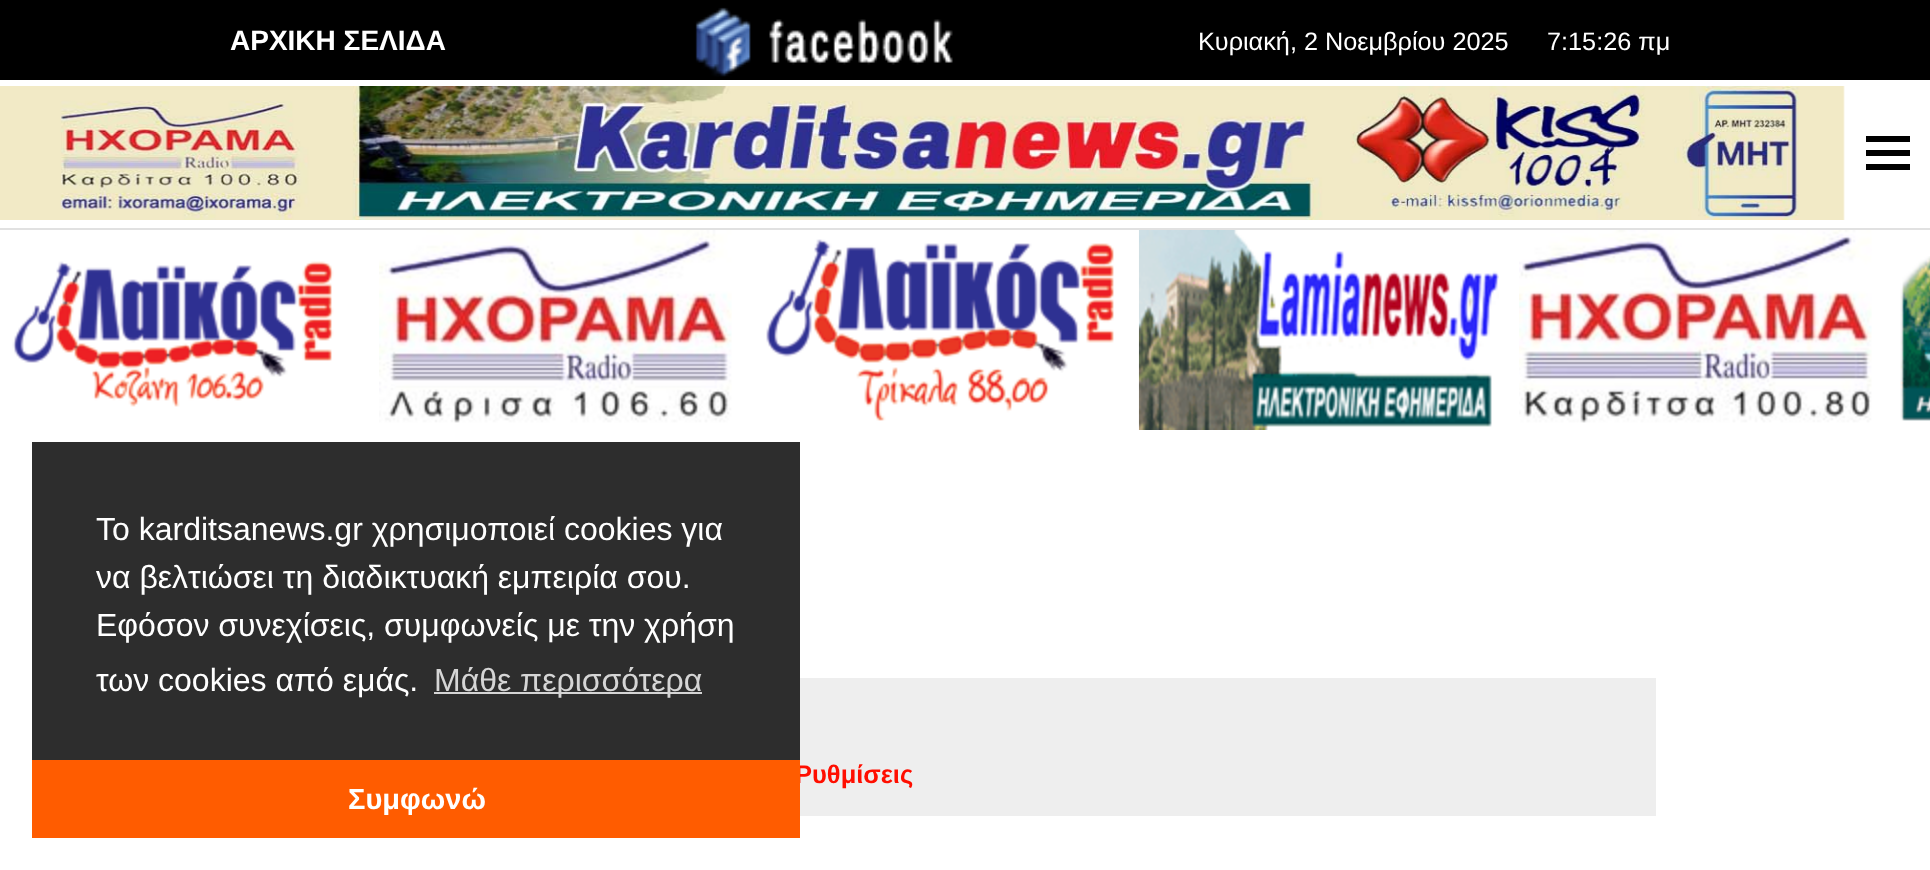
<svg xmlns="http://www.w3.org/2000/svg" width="1930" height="870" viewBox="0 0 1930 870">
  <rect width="100%" height="100%" fill="#fff"/>
  <path d="M0 228h1930v2H0z" fill="#e1e1e1"/>
  <path d="M0 0h1930v80H0z" fill="#000"/>
  <image x="695" y="7" width="258" height="70" href="img/1.png"/>
  <image x="0" y="86" width="1845" height="134" href="img/2.png"/>
  <path d="M1866 150h44v6H1866z" fill="#000"/>
  <path d="M1866 136h44v6H1866z" fill="#000"/>
  <path d="M1866 164h44v6H1866z" fill="#000"/>
  <image x="12" y="261" width="322" height="146" href="img/3.png"/>
  <image x="379" y="230" width="353" height="193" href="img/4.png"/>
  <image x="766" y="239" width="348" height="182" href="img/5.png"/>
  <image x="1138" y="230" width="361" height="200" href="img/6.png"/>
  <image x="1519" y="230" width="353" height="193" href="img/7.png"/>
  <image x="1900" y="256" width="30" height="165" href="img/8.png"/>
  <path d="M800 678h856v138H800z" fill="#eee"/>
  <path d="M32 442h768v318H32z" fill="#2d2d2d"/>
  <path d="M434 692h268v2H434z" fill="#d5d5d5"/>
  <text x="230" y="50" font-family="Liberation Sans" font-size="28" font-weight="bold" fill="#fff">ΑΡΧΙΚΗ ΣΕΛΙΔΑ</text>
  <g font-family="Liberation Sans" font-size="25.25" fill="#fff">
    <text x="1198" y="50">Κυριακή, 2 Νοεμβρίου 2025</text>
    <text x="1547" y="50">7:15:26 πμ</text>
  </g>
  <text x="795" y="783" font-family="Liberation Sans" font-size="25.5" font-weight="bold" fill="#ff0e00">Ρυθμίσεις</text>
  <g font-family="Liberation Sans" font-size="32" fill="#fff">
    <text x="96" y="540">Το karditsanews.gr χρησιμοποιεί cookies για</text>
    <text x="96" y="588">να βελτιώσει τη διαδικτυακή εμπειρία σου.</text>
    <text x="96" y="636">Εφόσον συνεχίσεις, συμφωνείς με την χρήση</text>
    <text x="96" y="691">των cookies από εμάς.</text>
  </g>
  <text x="434" y="691" font-family="Liberation Sans" font-size="32" fill="#d5d5d5">Μάθε περισσότερα</text>
  <path d="M32 760h768v78H32z" fill="#ff5c00"/>
  <text x="348" y="809" font-family="Liberation Sans" font-size="29" font-weight="bold" fill="#fff">Συμφωνώ</text>
</svg>
